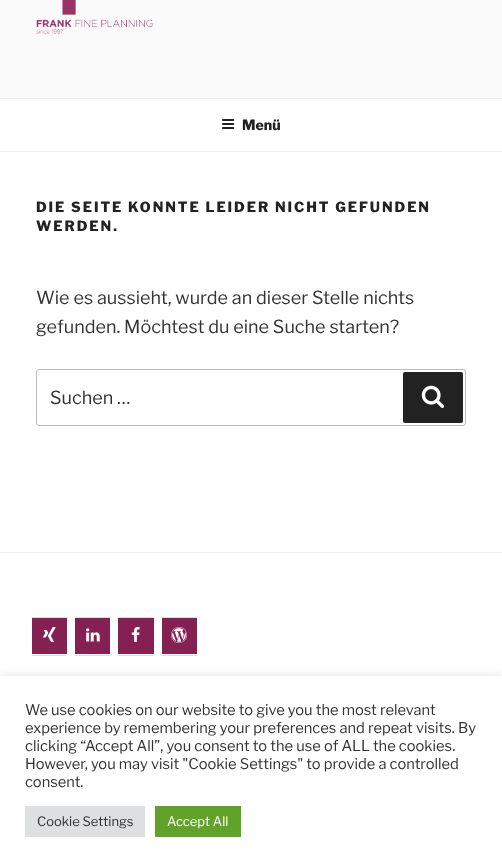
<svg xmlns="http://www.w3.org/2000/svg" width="502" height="867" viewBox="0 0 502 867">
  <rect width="100%" height="100%" fill="#fff"/>
  <path d="M0 0h502v98H0z" fill="#fafafa"/>
  <image x="36" y="0" width="117" height="34" href="img/1.png"/>
  <path d="M0 98h502v1H0z" fill="#eee"/>
  <path d="M0 151h502v1H0z" fill="#eee"/>
  <image x="222" y="119" width="13" height="10" href="img/2.png"/>
  <rect x="36.5" y="369.5" width="429" height="56" rx="2.5" fill="none" stroke="#bbb"/>
  <rect x="403" y="372" width="60" height="51" rx="2" fill="#222"/>
  <image x="421" y="385" width="23" height="23" href="img/3.png"/>
  <path d="M0 552h502v1H0z" fill="#eee"/>
  <path d="M32 617h35v1H32z" fill="#ddd"/>
  <path d="M32 655h35v1H32z" fill="#ddd"/>
  <path d="M32 618h35v36H32z" fill="#852053"/>
  <image x="43" y="627" width="13" height="15" href="img/4.png"/>
  <path d="M75 617h35v1H75z" fill="#ddd"/>
  <path d="M75 655h35v1H75z" fill="#ddd"/>
  <path d="M75 618h35v36H75z" fill="#852053"/>
  <image x="86" y="628" width="14" height="14" href="img/5.png"/>
  <path d="M118 617h36v1H118z" fill="#ddd"/>
  <path d="M118 655h36v1H118z" fill="#ddd"/>
  <path d="M118 618h36v36H118z" fill="#852053"/>
  <image x="131" y="627" width="9" height="15" href="img/6.png"/>
  <path d="M162 617h35v1H162z" fill="#ddd"/>
  <path d="M162 655h35v1H162z" fill="#ddd"/>
  <path d="M162 618h35v36H162z" fill="#852053"/>
  <image x="171" y="627" width="16" height="16" href="img/7.png"/>
  <path d="M0 675h502v191H0z" fill="#acabab4d" filter="blur(5px)"/>
  <path d="M0 676h502v191H0z" fill="#fff"/>
  <path d="M25 806h120v31H25z" fill="#dedfe0"/>
  <path d="M155 806h86v31H155z" fill="#61a229"/>
  <text x="242" y="130" font-family="Libre Franklin" font-size="14" font-weight="800" fill="#222">Menü</text>
  <g font-family="Libre Franklin" font-size="14" font-weight="800" letter-spacing="1.95" fill="#222">
    <text x="36" y="212">DIE SEITE KONNTE LEIDER NICHT GEFUNDEN</text>
    <text x="36" y="231">WERDEN.</text>
  </g>
  <g font-family="Libre Franklin" font-size="18" fill="#333">
    <text x="36" y="304">Wie es aussieht, wurde an dieser Stelle nichts</text>
    <text x="36" y="333">gefunden. Möchtest du eine Suche starten?</text>
    <text x="50" y="404">Suchen …</text>
  </g>
  <g font-family="Libre Franklin" font-size="14.7" fill="#333">
    <text x="25" y="715">We use cookies on our website to give you the most relevant</text>
    <text x="25" y="733">experience by remembering your preferences and repeat visits. By</text>
    <text x="25" y="751">clicking “Accept All”, you consent to the use of ALL the cookies.</text>
    <text x="25" y="769">However, you may visit "Cookie Settings" to provide a controlled</text>
    <text x="25" y="787">consent.</text>
  </g>
  <text x="37" y="826" font-family="Libre Franklin" font-size="13" fill="#333">Cookie Settings</text>
  <text x="167" y="826" font-family="Libre Franklin" font-size="13" fill="#fff">Accept All</text>
</svg>
